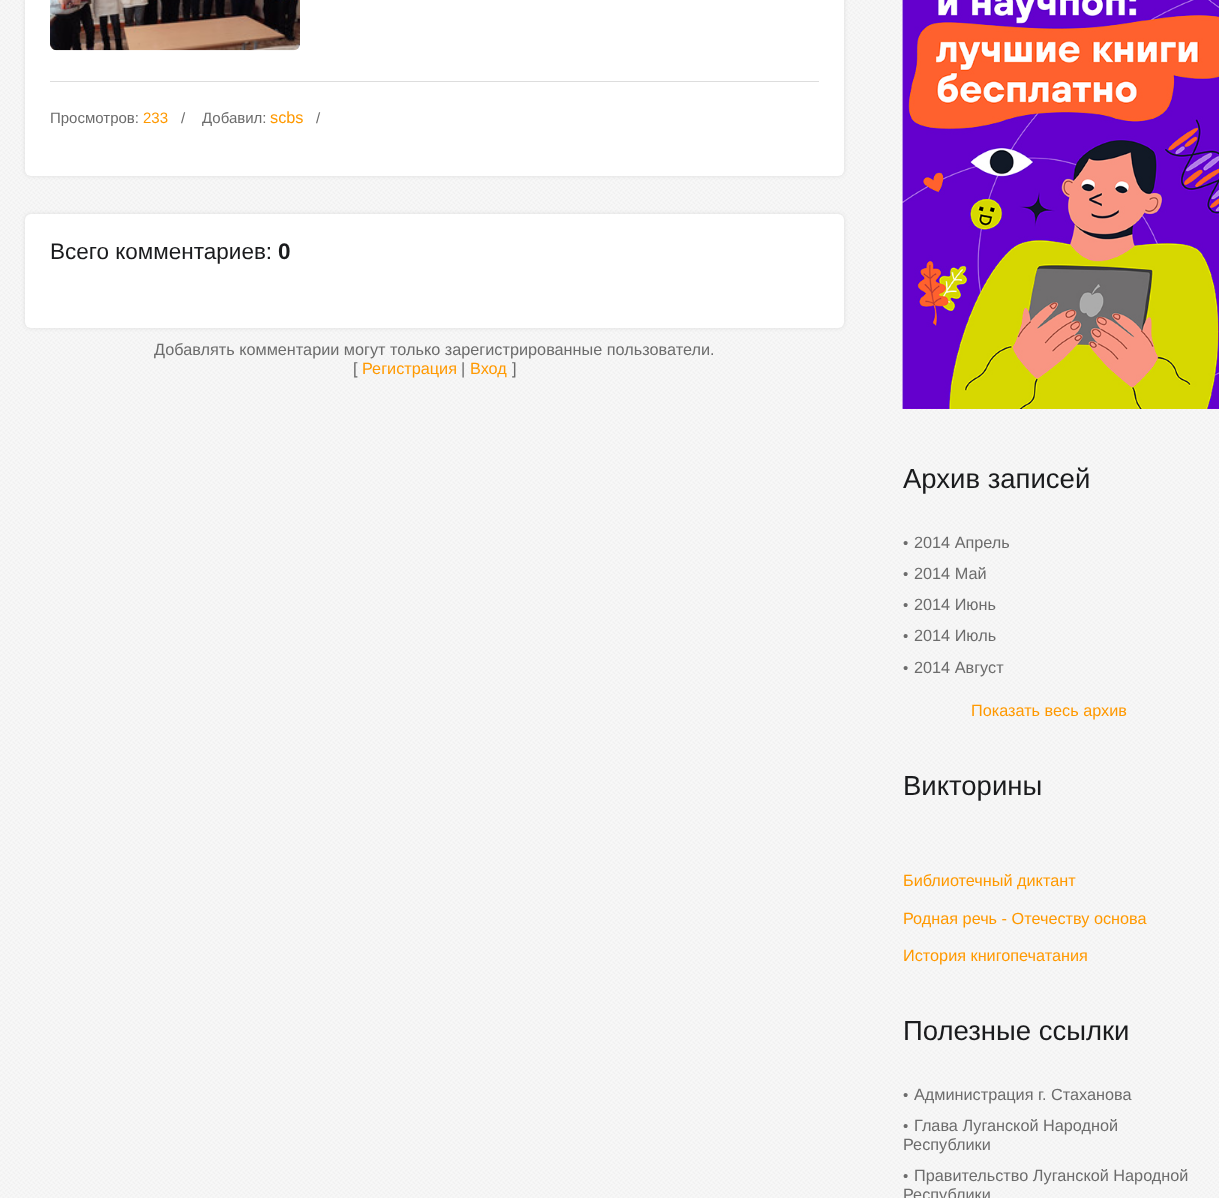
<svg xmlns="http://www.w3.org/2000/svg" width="1219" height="1198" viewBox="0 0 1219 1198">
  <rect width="100%" height="100%" fill="#fff"/>
  <image x="0" y="0" width="1219" height="1198" href="img/1.png"/>
  <rect x="25" y="-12" width="819" height="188" rx="6" fill="#ddd" filter="blur(2px)"/>
  <rect x="25" y="-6" width="819" height="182" rx="6" fill="#fff"/>
  <image x="50" y="0" width="250" height="51" href="img/2.png"/>
  <path d="M50 81h769v1H50z" fill="#ddd"/>
  <rect x="25" y="214" width="819" height="114" rx="6" fill="#ddd" filter="blur(2px)"/>
  <rect x="25" y="214" width="819" height="114" rx="6" fill="#fff"/>
  <image x="902" y="0" width="317" height="409" href="img/3.png"/>
  <text x="50" y="123" font-family="Liberation Sans" font-size="15" fill="#6c6c6c">Просмотров:</text>
  <text x="143" y="123" font-family="Liberation Sans" font-size="15" fill="#f90">233</text>
  <g font-family="Liberation Sans" font-size="15" fill="#6c6c6c">
    <text x="181" y="123">/</text>
    <text x="202" y="123">Добавил:</text>
  </g>
  <text x="270" y="123" font-family="Liberation Sans" font-size="16.25" fill="#f90">scbs</text>
  <text x="316" y="123" font-family="Liberation Sans" font-size="15" fill="#6c6c6c">/</text>
  <text x="50" y="259" font-family="Liberation Sans" font-size="22.5" fill="#1a1b1d">Всего комментариев:</text>
  <text x="278" y="259" font-family="Liberation Sans" font-size="22.5" font-weight="bold" fill="#1a1b1d">0</text>
  <g font-family="Liberation Sans" font-size="16.25" fill="#6c6c6c">
    <text x="154" y="355">Добавлять комментарии могут только зарегистрированные пользователи.</text>
    <text x="353" y="374">[</text>
  </g>
  <text x="362" y="374" font-family="Liberation Sans" font-size="16.25" fill="#f90">Регистрация</text>
  <text x="461" y="374" font-family="Liberation Sans" font-size="16.25" fill="#6c6c6c">|</text>
  <text x="470" y="374" font-family="Liberation Sans" font-size="16.25" fill="#f90">Вход</text>
  <text x="512" y="374" font-family="Liberation Sans" font-size="16.25" fill="#6c6c6c">]</text>
  <text x="903" y="488" font-family="Liberation Sans" font-size="27.5" fill="#1a1b1d">Архив записей</text>
  <text x="903" y="548" font-family="Liberation Sans" font-size="15" fill="#6c6c6c">•</text>
  <text x="914" y="548" font-family="Liberation Sans" font-size="16.25" fill="#6c6c6c">2014 Апрель</text>
  <text x="903" y="579" font-family="Liberation Sans" font-size="15" fill="#6c6c6c">•</text>
  <text x="914" y="579" font-family="Liberation Sans" font-size="16.25" fill="#6c6c6c">2014 Май</text>
  <text x="903" y="610" font-family="Liberation Sans" font-size="15" fill="#6c6c6c">•</text>
  <text x="914" y="610" font-family="Liberation Sans" font-size="16.25" fill="#6c6c6c">2014 Июнь</text>
  <text x="903" y="641" font-family="Liberation Sans" font-size="15" fill="#6c6c6c">•</text>
  <text x="914" y="641" font-family="Liberation Sans" font-size="16.25" fill="#6c6c6c">2014 Июль</text>
  <text x="903" y="673" font-family="Liberation Sans" font-size="15" fill="#6c6c6c">•</text>
  <text x="914" y="673" font-family="Liberation Sans" font-size="16.25" fill="#6c6c6c">2014 Август</text>
  <text x="971" y="716" font-family="Liberation Sans" font-size="16.25" fill="#f90">Показать весь архив</text>
  <text x="903" y="795" font-family="Liberation Sans" font-size="27.5" fill="#1a1b1d">Викторины</text>
  <g font-family="Liberation Sans" font-size="16.25" fill="#f90">
    <text x="903" y="886">Библиотечный диктант</text>
    <text x="903" y="924">Родная речь - Отечеству основа</text>
    <text x="903" y="961">История книгопечатания</text>
  </g>
  <text x="903" y="1040" font-family="Liberation Sans" font-size="27.5" fill="#1a1b1d">Полезные ссылки</text>
  <text x="903" y="1100" font-family="Liberation Sans" font-size="15" fill="#6c6c6c">•</text>
  <text x="914" y="1100" font-family="Liberation Sans" font-size="16.25" fill="#6c6c6c">Администрация г. Стаханова</text>
  <text x="903" y="1131" font-family="Liberation Sans" font-size="15" fill="#6c6c6c">•</text>
  <g font-family="Liberation Sans" font-size="16.25" fill="#6c6c6c">
    <text x="914" y="1131">Глава Луганской Народной</text>
    <text x="903" y="1150">Республики</text>
  </g>
  <text x="903" y="1181" font-family="Liberation Sans" font-size="15" fill="#6c6c6c">•</text>
  <g font-family="Liberation Sans" font-size="16.25" fill="#6c6c6c">
    <text x="914" y="1181">Правительство Луганской Народной</text>
    <text x="903" y="1200">Республики</text>
  </g>
</svg>
